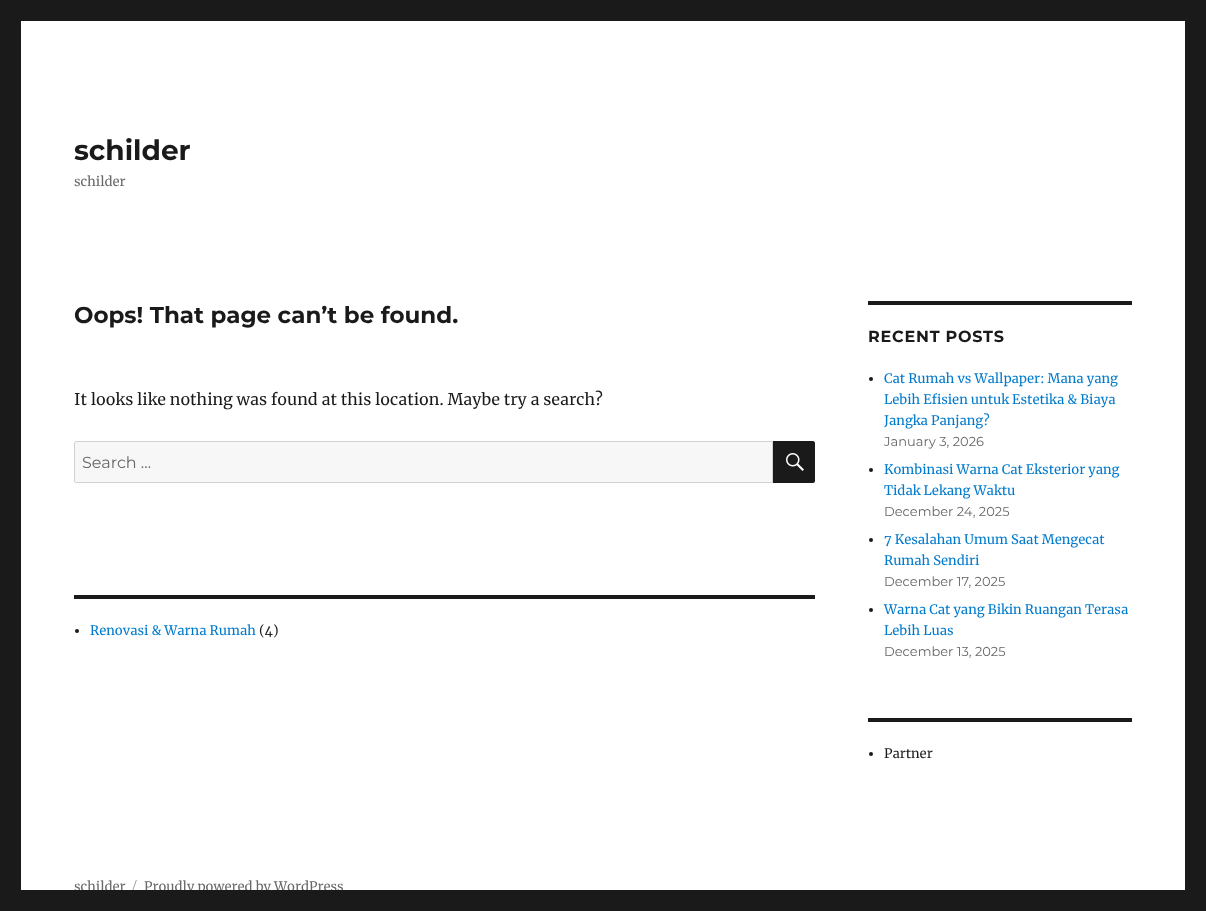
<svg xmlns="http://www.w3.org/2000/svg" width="1206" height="911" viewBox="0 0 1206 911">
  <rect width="100%" height="100%" fill="#1a1a1a"/>
  <path d="M21 21h1164v869H21z" fill="#fff"/>
  <path d="M76 441.5H772.5V482.5H76C75 482.5 74.5 482 74.5 481V443C74.5 442 75 441.5 76 441.5Z" fill="#f7f7f7" stroke="#d1d1d1"/>
  <path d="M773 441H813C814 441 815 442 815 443V481C815 482 814 483 813 483H773Z" fill="#1a1a1a"/>
  <image x="786" y="453" width="18" height="18" href="img/1.png"/>
  <path d="M74 595h741v4H74z" fill="#1a1a1a"/>
  <circle cx="77" cy="631" r="2" fill="#1a1a1a"/>
  <path d="M868 301h264v4H868z" fill="#1a1a1a"/>
  <circle cx="871" cy="379" r="2" fill="#1a1a1a"/>
  <circle cx="871" cy="470" r="2" fill="#1a1a1a"/>
  <circle cx="871" cy="540" r="2" fill="#1a1a1a"/>
  <circle cx="871" cy="610" r="2" fill="#1a1a1a"/>
  <path d="M868 718h264v4H868z" fill="#1a1a1a"/>
  <circle cx="871" cy="754" r="2" fill="#1a1a1a"/>
  <text x="74" y="160" font-family="Montserrat" font-size="28" font-weight="100" fill="#1a1a1a">schilder</text>
  <text x="74" y="186" font-family="Merriweather" font-size="13" fill="#686868">schilder</text>
  <text x="74" y="323" font-family="Montserrat" font-size="23" font-weight="100" fill="#1a1a1a">Oops! That page can’t be found.</text>
  <text x="74" y="405" font-family="Merriweather" font-size="16" fill="#1a1a1a">It looks like nothing was found at this location. Maybe try a search?</text>
  <text x="82" y="468" font-family="'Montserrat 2'" font-size="16" font-weight="100" fill="#686868">Search …</text>
  <text x="90" y="635" font-family="Merriweather" font-size="13" fill="#007acc">Renovasi &amp; Warna Rumah</text>
  <text x="259" y="635" font-family="Merriweather" font-size="13" fill="#1a1a1a">(4)</text>
  <text x="868" y="342" font-family="Montserrat" font-size="16" font-weight="100" letter-spacing="0.75" fill="#1a1a1a">RECENT POSTS</text>
  <g font-family="Merriweather" font-size="13" fill="#007acc">
    <text x="884" y="383">Cat Rumah vs Wallpaper: Mana yang</text>
    <text x="884" y="404">Lebih Efisien untuk Estetika &amp; Biaya</text>
    <text x="884" y="425">Jangka Panjang?</text>
  </g>
  <text x="884" y="446" font-family="'Montserrat 2'" font-size="13" font-weight="100" fill="#686868">January 3, 2026</text>
  <g font-family="Merriweather" font-size="13" fill="#007acc">
    <text x="884" y="474">Kombinasi Warna Cat Eksterior yang</text>
    <text x="884" y="495">Tidak Lekang Waktu</text>
  </g>
  <text x="884" y="516" font-family="'Montserrat 2'" font-size="13" font-weight="100" fill="#686868">December 24, 2025</text>
  <g font-family="Merriweather" font-size="13" fill="#007acc">
    <text x="884" y="544">7 Kesalahan Umum Saat Mengecat</text>
    <text x="884" y="565">Rumah Sendiri</text>
  </g>
  <text x="884" y="586" font-family="'Montserrat 2'" font-size="13" font-weight="100" fill="#686868">December 17, 2025</text>
  <g font-family="Merriweather" font-size="13" fill="#007acc">
    <text x="884" y="614">Warna Cat yang Bikin Ruangan Terasa</text>
    <text x="884" y="635">Lebih Luas</text>
  </g>
  <text x="884" y="656" font-family="'Montserrat 2'" font-size="13" font-weight="100" fill="#686868">December 13, 2025</text>
  <text x="884" y="758" font-family="Merriweather" font-size="13" fill="#1a1a1a">Partner</text>
  <text x="74" y="891" font-family="Merriweather" font-size="13" fill="#686868">schilder</text>
  <text x="132" y="891" font-family="'Montserrat 2'" font-size="13" font-weight="100" fill="#959595">/</text>
  <text x="144" y="891" font-family="Merriweather" font-size="13" fill="#686868">Proudly powered by WordPress</text>
  <path d="M74 890h269v5H74z" fill="#1a1a1a"/>
</svg>
